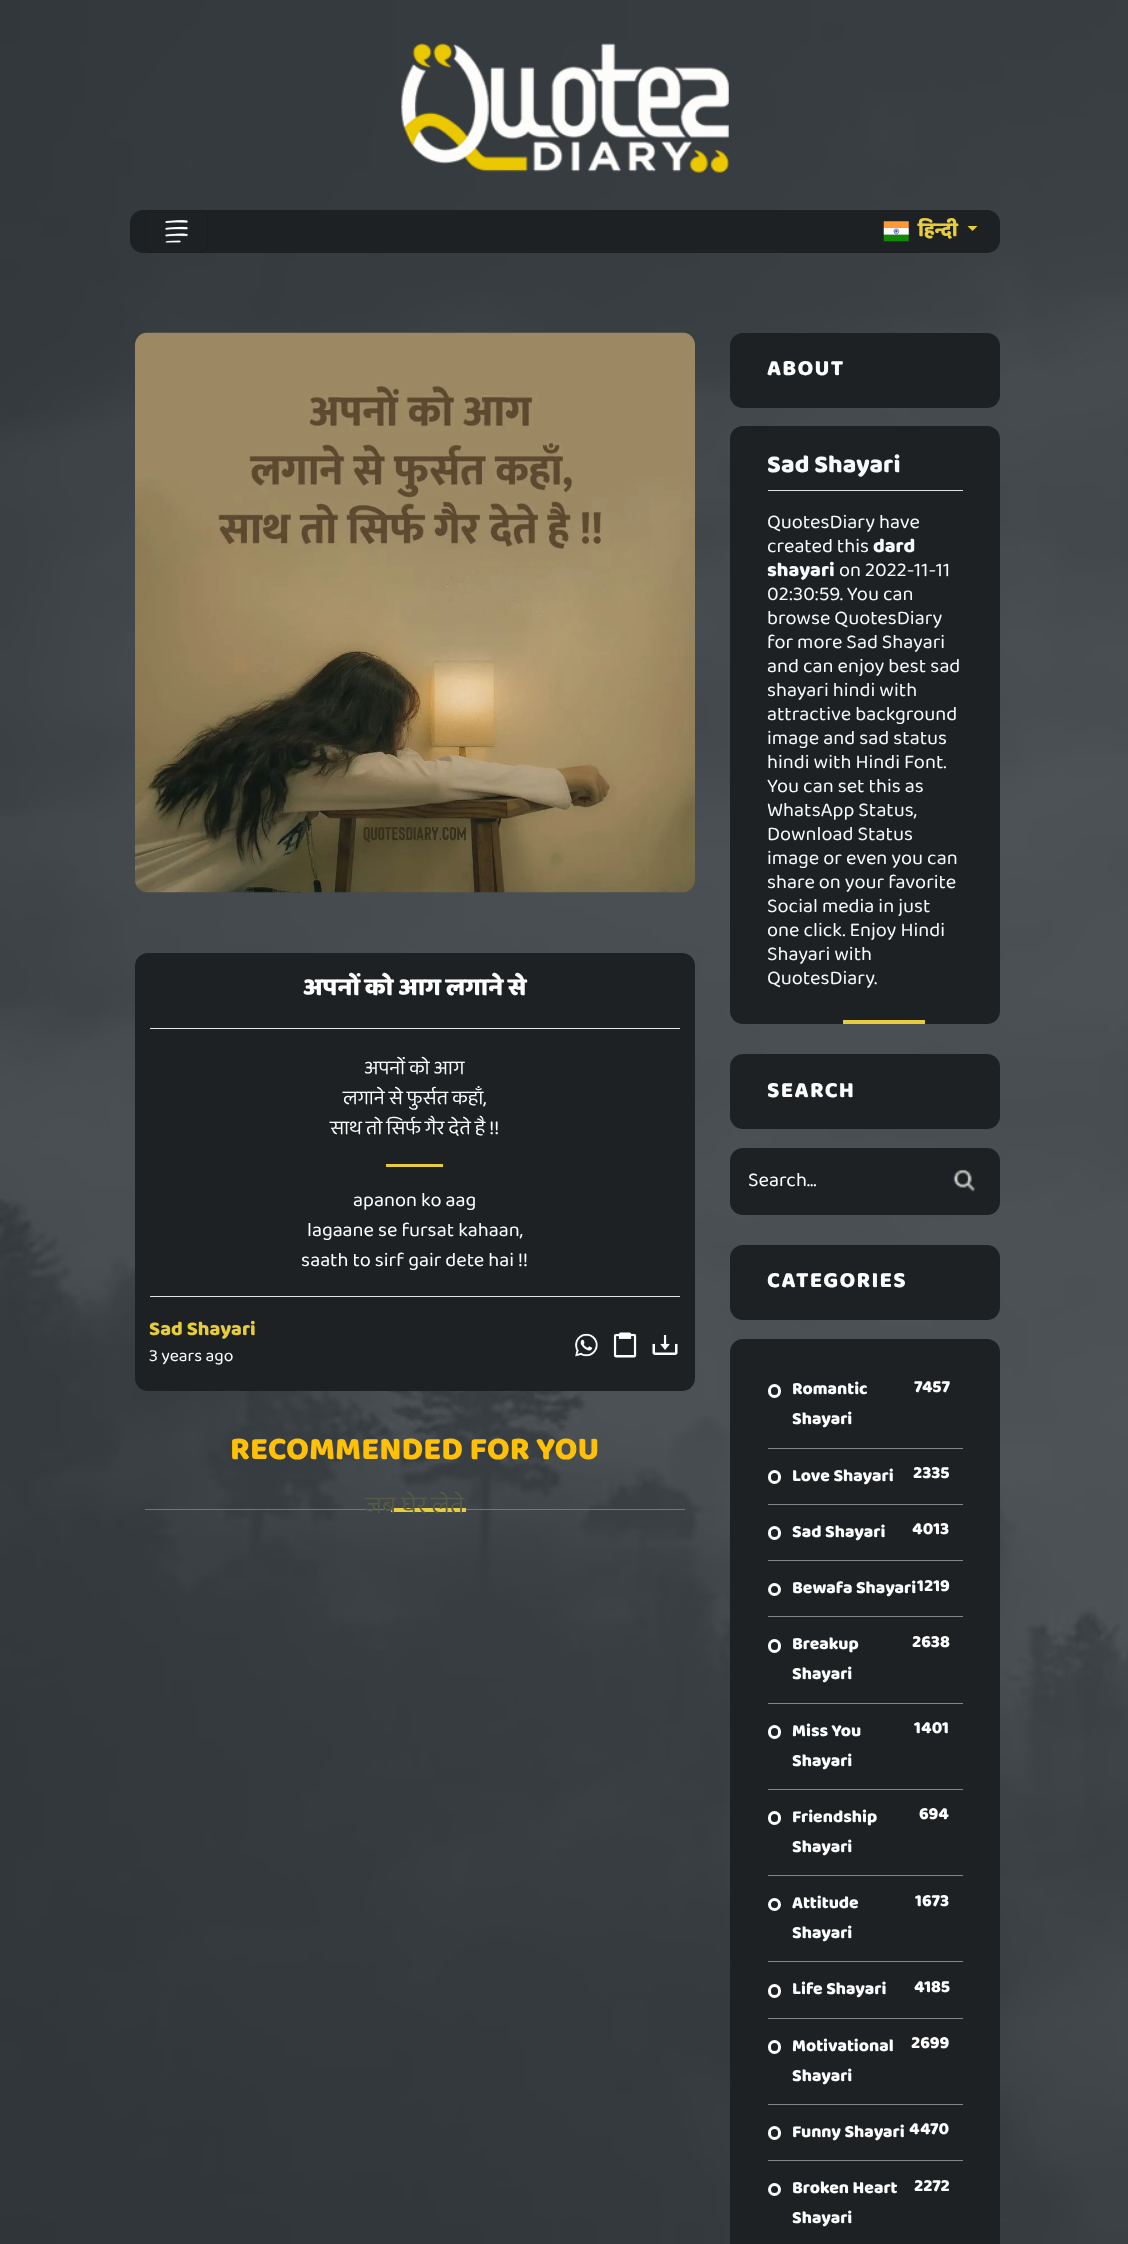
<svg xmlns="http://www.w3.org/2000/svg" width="1128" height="2244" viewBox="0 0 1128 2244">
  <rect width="100%" height="100%" fill="#fff"/>
  <image x="0" y="0" width="1128" height="2244" href="img/1.png"/>
  <image x="401" y="43" width="328" height="130" href="img/2.png"/>
  <rect x="130" y="210" width="870" height="43" rx="13" fill="#1d2123"/>
  <rect x="145.5" y="210.5" width="62" height="42" rx="7.5" fill="none" stroke="#1a1e20"/>
  <image x="165" y="220" width="23" height="23" href="img/3.png"/>
  <image x="883" y="221" width="26" height="21" href="img/4.png"/>
  <path d="M967.5 226H977.5L972.5 231Z" fill="#e7cd3b"/>
  <image x="135" y="332" width="560" height="561" href="img/5.png"/>
  <rect x="135" y="953" width="560" height="438" rx="13" fill="#1d2123"/>
  <path d="M150 1028h530v1H150z" fill="#e8e8e8"/>
  <path d="M386 1164h57v3H386z" fill="#e7cd3b"/>
  <path d="M150 1296h530v1H150z" fill="#dee2e6"/>
  <image x="575" y="1333" width="23" height="24" href="img/6.png"/>
  <image x="613" y="1332" width="24" height="26" href="img/7.png"/>
  <image x="652" y="1335" width="26" height="20" href="img/8.png"/>
  <path d="M145 1509h540v1H145z" fill="#757575"/>
  <path d="M391 1508h75v4H391z" fill="#e7cd3b"/>
  <rect x="730" y="333" width="270" height="75" rx="13" fill="#1d2123"/>
  <rect x="730" y="426" width="270" height="598" rx="13" fill="#1d2123"/>
  <path d="M768 490h195v1H768z" fill="#dee2e6"/>
  <path d="M843 1020h82v4H843z" fill="#e7cd3b"/>
  <rect x="730" y="1054" width="270" height="75" rx="13" fill="#1d2123"/>
  <rect x="730" y="1148" width="270" height="67" rx="13" fill="#1d2123"/>
  <image x="953" y="1169" width="23" height="23" href="img/9.png"/>
  <rect x="730" y="1245" width="270" height="75" rx="13" fill="#1d2123"/>
  <rect x="730" y="1339" width="270" height="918" rx="13" fill="#1d2123"/>
  <path d="M768 1448h195v1H768z" fill="#858585"/>
  <rect x="769.5" y="1385.5" width="10" height="11" rx="5" fill="none" stroke="#fff" stroke-width="3"/>
  <path d="M768 1504h195v1H768z" fill="#858585"/>
  <rect x="769.5" y="1471.5" width="10" height="11" rx="5" fill="none" stroke="#fff" stroke-width="3"/>
  <path d="M768 1560h195v1H768z" fill="#858585"/>
  <rect x="769.5" y="1527.5" width="10" height="11" rx="5" fill="none" stroke="#fff" stroke-width="3"/>
  <path d="M768 1616h195v1H768z" fill="#858585"/>
  <circle cx="774.5" cy="1589.5" r="5" fill="none" stroke="#fff" stroke-width="3"/>
  <path d="M768 1703h195v1H768z" fill="#858585"/>
  <rect x="769.5" y="1640.5" width="10" height="11" rx="5" fill="none" stroke="#fff" stroke-width="3"/>
  <path d="M768 1789h195v1H768z" fill="#858585"/>
  <rect x="769.5" y="1726.5" width="10" height="11" rx="5" fill="none" stroke="#fff" stroke-width="3"/>
  <path d="M768 1875h195v1H768z" fill="#858585"/>
  <rect x="769.5" y="1812.5" width="10" height="11" rx="5" fill="none" stroke="#fff" stroke-width="3"/>
  <path d="M768 1961h195v1H768z" fill="#858585"/>
  <circle cx="774.5" cy="1904.5" r="5" fill="none" stroke="#fff" stroke-width="3"/>
  <path d="M768 2018h195v1H768z" fill="#858585"/>
  <rect x="769.5" y="1985.5" width="10" height="11" rx="5" fill="none" stroke="#fff" stroke-width="3"/>
  <path d="M768 2104h195v1H768z" fill="#858585"/>
  <rect x="769.5" y="2041.5" width="10" height="11" rx="5" fill="none" stroke="#fff" stroke-width="3"/>
  <path d="M768 2160h195v1H768z" fill="#858585"/>
  <rect x="769.5" y="2127.5" width="10" height="11" rx="5" fill="none" stroke="#fff" stroke-width="3"/>
  <circle cx="774.5" cy="2189.5" r="5" fill="none" stroke="#fff" stroke-width="3"/>
  <text x="918" y="236" font-family="'Baloo 2'" font-size="20" font-weight="800" fill="#e7cd3b">हिन्दी</text>
  <text x="303" y="995" font-family="'Baloo 2'" font-size="25" font-weight="800" fill="#fff">अपनों को आग लगाने से</text>
  <g font-family="'Baloo 2'" font-size="20" fill="#fff">
    <text x="364" y="1074">अपनों को आग</text>
    <text x="343" y="1104">लगाने से फुर्सत कहाँ,</text>
    <text x="330" y="1134">साथ तो सिर्फ गैर देते है !!</text>
    <text x="353" y="1206">apanon ko aag</text>
    <text x="307" y="1236">lagaane se fursat kahaan,</text>
    <text x="301" y="1266">saath to sirf gair dete hai !!</text>
  </g>
  <text x="149" y="1335" font-family="'Baloo 2'" font-size="20" font-weight="800" fill="#e7cd3b">Sad Shayari</text>
  <text x="149" y="1361" font-family="'Baloo 2'" font-size="17.5" fill="#fff">3 years ago</text>
  <text x="230" y="1459" font-family="'Baloo 2'" font-size="32.75" font-weight="800" fill="#ffc107">RECOMMENDED FOR YOU</text>
  <text x="365" y="1513" font-family="'Baloo 2'" font-size="25" fill="#575949">जब घेर लेते</text>
  <text x="767" y="375" font-family="'Baloo 2'" font-size="22.5" font-weight="800" letter-spacing="1.25" fill="#fff">ABOUT</text>
  <text x="767" y="472" font-family="'Baloo 2'" font-size="25" font-weight="800" fill="#f8f9fa">Sad Shayari</text>
  <g font-family="'Baloo 2'" font-size="20" fill="#f8f9fa">
    <text x="767" y="528">QuotesDiary have</text>
    <text x="767" y="552">created this</text>
  </g>
  <g font-family="'Baloo 2'" font-size="20" font-weight="800" fill="#f8f9fa">
    <text x="873" y="552">dard</text>
    <text x="767" y="576">shayari</text>
  </g>
  <g font-family="'Baloo 2'" font-size="20" fill="#f8f9fa">
    <text x="839" y="576">on 2022-11-11</text>
    <text x="767" y="600">02:30:59. You can</text>
    <text x="767" y="624">browse QuotesDiary</text>
    <text x="767" y="648">for more Sad Shayari</text>
    <text x="767" y="672">and can enjoy best sad</text>
    <text x="767" y="696">shayari hindi with</text>
    <text x="767" y="720">attractive background</text>
    <text x="767" y="744">image and sad status</text>
    <text x="767" y="768">hindi with Hindi Font.</text>
    <text x="767" y="792">You can set this as</text>
    <text x="767" y="816">WhatsApp Status,</text>
    <text x="767" y="840">Download Status</text>
    <text x="767" y="864">image or even you can</text>
    <text x="767" y="888">share on your favorite</text>
    <text x="767" y="912">Social media in just</text>
    <text x="767" y="936">one click. Enjoy Hindi</text>
    <text x="767" y="960">Shayari with</text>
    <text x="767" y="984">QuotesDiary.</text>
  </g>
  <text x="767" y="1097" font-family="'Baloo 2'" font-size="22.5" font-weight="800" letter-spacing="1.25" fill="#fff">SEARCH</text>
  <text x="748" y="1186" font-family="'Baloo 2'" font-size="20" fill="#fff">Search...</text>
  <text x="767" y="1287" font-family="'Baloo 2'" font-size="22.5" font-weight="800" letter-spacing="1.25" fill="#fff">CATEGORIES</text>
  <g font-family="'Baloo 2'" font-size="17.5" font-weight="800" fill="#fff">
    <text x="792" y="1394">Romantic</text>
    <text x="914" y="1392">7457</text>
    <text x="792" y="1424">Shayari</text>
    <text x="792" y="1481">Love Shayari</text>
    <text x="913" y="1478">2335</text>
    <text x="792" y="1537">Sad Shayari</text>
    <text x="912" y="1534">4013</text>
    <text x="792" y="1593">Bewafa Shayari</text>
    <text x="917" y="1591">1219</text>
    <text x="792" y="1649">Breakup</text>
    <text x="912" y="1647">2638</text>
    <text x="792" y="1679">Shayari</text>
    <text x="792" y="1736">Miss You</text>
    <text x="914" y="1733">1401</text>
    <text x="792" y="1766">Shayari</text>
    <text x="792" y="1822">Friendship</text>
    <text x="919" y="1819">694</text>
    <text x="792" y="1852">Shayari</text>
    <text x="792" y="1908">Attitude</text>
    <text x="915" y="1906">1673</text>
    <text x="792" y="1938">Shayari</text>
    <text x="792" y="1994">Life Shayari</text>
    <text x="914" y="1992">4185</text>
    <text x="792" y="2051">Motivational</text>
    <text x="911" y="2048">2699</text>
    <text x="792" y="2081">Shayari</text>
    <text x="792" y="2137">Funny Shayari</text>
    <text x="909" y="2134">4470</text>
    <text x="792" y="2193">Broken Heart</text>
    <text x="914" y="2191">2272</text>
    <text x="792" y="2223">Shayari</text>
  </g>
</svg>
